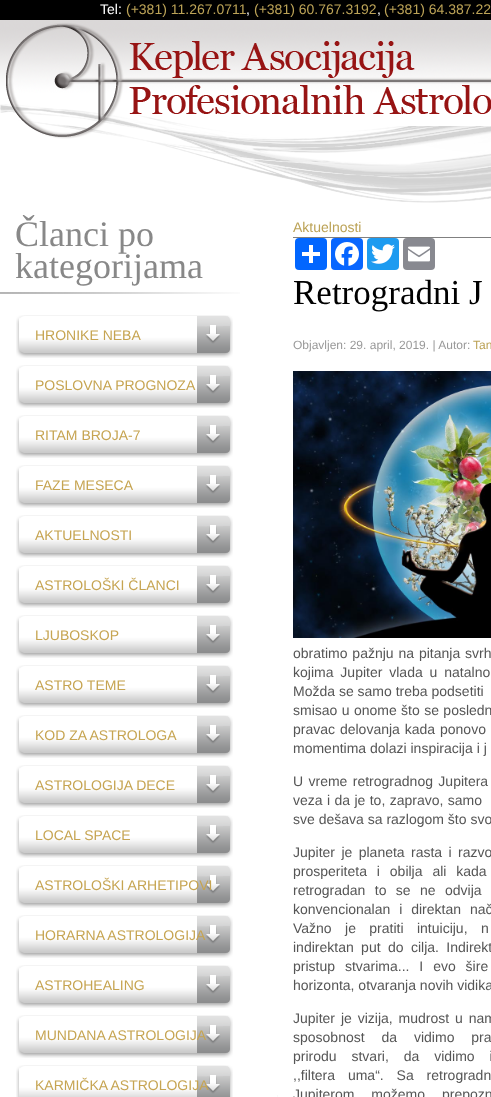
<svg xmlns="http://www.w3.org/2000/svg" width="491" height="1097" viewBox="0 0 491 1097">
  <rect width="100%" height="100%" fill="#fff"/>
  <path d="M0 0h491v20H0z" fill="#000"/>
  <image x="0" y="20" width="491" height="183" href="img/1.png"/>
  <path d="M277 1095h1v2H277z" fill="#f9f9f9"/>
  <image x="0" y="292" width="240" height="2" href="img/2.png"/>
  <image x="16" y="315" width="217" height="43" href="img/3.png"/>
  <image x="16" y="365" width="217" height="43" href="img/3.png"/>
  <image x="16" y="415" width="217" height="43" href="img/3.png"/>
  <image x="16" y="465" width="217" height="43" href="img/3.png"/>
  <image x="16" y="515" width="217" height="43" href="img/3.png"/>
  <image x="16" y="565" width="217" height="43" href="img/3.png"/>
  <image x="16" y="615" width="217" height="43" href="img/3.png"/>
  <image x="16" y="665" width="217" height="43" href="img/3.png"/>
  <image x="16" y="715" width="217" height="43" href="img/3.png"/>
  <image x="16" y="765" width="217" height="43" href="img/3.png"/>
  <image x="16" y="815" width="217" height="43" href="img/3.png"/>
  <image x="16" y="865" width="217" height="43" href="img/3.png"/>
  <image x="16" y="915" width="217" height="43" href="img/3.png"/>
  <image x="16" y="965" width="217" height="43" href="img/3.png"/>
  <image x="16" y="1015" width="217" height="43" href="img/3.png"/>
  <image x="16" y="1065" width="217" height="32" href="img/4.png"/>
  <path d="M293 237h198v1H293z" fill="#808080"/>
  <rect x="295" y="238" width="32" height="32" rx="4" fill="#0166ff"/>
  <path d="M309 245h4v18H309z" fill="#fff"/>
  <path d="M302 252h18v4H302z" fill="#fff"/>
  <rect x="331" y="238" width="32" height="32" rx="4" fill="#0866ff"/>
  <image x="335" y="242" width="24" height="24" href="img/5.png"/>
  <rect x="367" y="238" width="32" height="32" rx="4" fill="#1d9bf0"/>
  <image x="371" y="244" width="24" height="20" href="img/6.png"/>
  <rect x="403" y="238" width="32" height="32" rx="4" fill="#888990"/>
  <image x="408" y="246" width="22" height="16" href="img/7.png"/>
  <image x="293" y="371" width="198" height="267" href="img/8.png"/>
  <text x="100" y="14" font-family="Liberation Sans" font-size="14" fill="#fff">Tel:</text>
  <text x="126" y="14" font-family="Liberation Sans" font-size="14" fill="#bca357">(+381) 11.267.0711</text>
  <text x="246" y="14" font-family="Liberation Sans" font-size="14" fill="#fff">,</text>
  <text x="254" y="14" font-family="Liberation Sans" font-size="14" fill="#bca357">(+381) 60.767.3192</text>
  <text x="377" y="14" font-family="Liberation Sans" font-size="14" fill="#fff">,</text>
  <text x="384" y="14" font-family="Liberation Sans" font-size="14" fill="#bca357">(+381) 64.387.22</text>
  <g font-family="Liberation Serif" font-size="36" fill="#888">
    <text x="15" y="246">Članci po</text>
    <text x="15" y="278">kategorijama</text>
  </g>
  <g font-family="Liberation Sans" font-size="14" fill="#c6a451">
    <text x="35" y="340">HRONIKE NEBA</text>
    <text x="35" y="390">POSLOVNA PROGNOZA</text>
    <text x="35" y="440">RITAM BROJA-7</text>
    <text x="35" y="490">FAZE MESECA</text>
    <text x="35" y="540">AKTUELNOSTI</text>
    <text x="35" y="590">ASTROLOŠKI ČLANCI</text>
    <text x="35" y="640">LJUBOSKOP</text>
    <text x="35" y="690">ASTRO TEME</text>
    <text x="35" y="740">KOD ZA ASTROLOGA</text>
    <text x="35" y="790">ASTROLOGIJA DECE</text>
    <text x="35" y="840">LOCAL SPACE</text>
    <text x="35" y="890">ASTROLOŠKI ARHETIPOVI</text>
    <text x="35" y="940">HORARNA ASTROLOGIJA</text>
    <text x="35" y="990">ASTROHEALING</text>
    <text x="35" y="1040">MUNDANA ASTROLOGIJA</text>
    <text x="35" y="1090">KARMIČKA ASTROLOGIJA</text>
  </g>
  <text x="293" y="232" font-family="Liberation Sans" font-size="14" fill="#bca357">Aktuelnosti</text>
  <text x="293" y="304" font-family="Liberation Serif" font-size="35" fill="#000">Retrogradni J</text>
  <text x="293" y="349" font-family="Liberation Sans" font-size="12" fill="#999">Objavljen: 29. april, 2019. | Autor:</text>
  <text x="473" y="349" font-family="Liberation Sans" font-size="12" fill="#bca357">Tan</text>
  <g font-family="Liberation Sans" font-size="14" fill="#555">
    <text x="293" y="658" word-spacing="1">obratimo pažnju na pitanja svrh</text>
    <text x="293" y="677" word-spacing="3">kojima Jupiter vlada u natalno</text>
    <text x="293" y="696">Možda se samo treba podsetiti</text>
    <text x="293" y="715" word-spacing="0.5">smisao u onome što se posledn</text>
    <text x="293" y="734" word-spacing="1">pravac delovanja kada ponovo</text>
    <text x="293" y="753">momentima dolazi inspiracija i j</text>
    <text x="293" y="786" word-spacing="1.5">U vreme retrogradnog Jupitera</text>
    <text x="293" y="805" word-spacing="0.5">veza i da je to, zapravo, samo</text>
    <text x="293" y="824">sve dešava sa razlogom što svo</text>
    <text x="293" y="857" word-spacing="2.5">Jupiter je planeta rasta i razvo</text>
    <text x="293" y="876" word-spacing="6">prosperiteta i obilja ali kada</text>
    <text x="293" y="895" word-spacing="5.5">retrogradan to se ne odvija</text>
    <text x="293" y="914" word-spacing="5">konvencionalan i direktan nač</text>
    <text x="293" y="933" word-spacing="9.5">Važno je pratiti intuiciju, n</text>
    <text x="293" y="952" word-spacing="3.5">indirektan put do cilja. Indirekt</text>
    <text x="293" y="971" word-spacing="6">pristup stvarima... I evo šire</text>
    <text x="293" y="990">horizonta, otvaranja novih vidika</text>
    <text x="293" y="1023" word-spacing="2">Jupiter je vizija, mudrost u nam</text>
    <text x="293" y="1042" word-spacing="13">sposobnost da vidimo pra</text>
    <text x="293" y="1061" word-spacing="11">prirodu stvari, da vidimo i</text>
    <text x="293" y="1080" word-spacing="9">,,filtera uma“. Sa retrogradn</text>
    <text x="293" y="1099" word-spacing="13">Jupiterom možemo prepozn</text>
  </g>
</svg>
